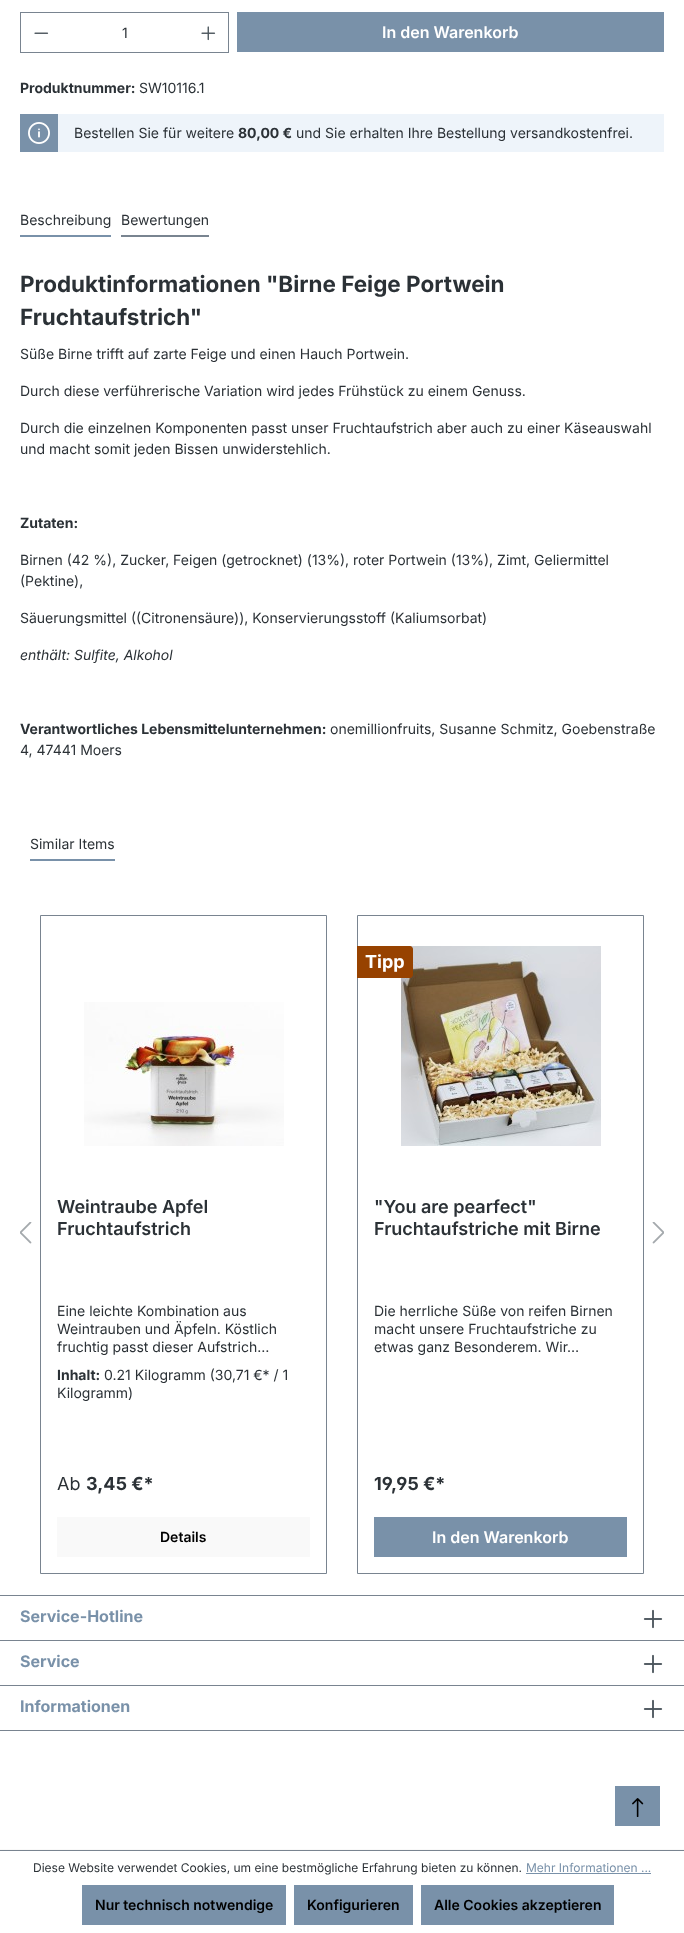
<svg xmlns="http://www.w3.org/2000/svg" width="684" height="1933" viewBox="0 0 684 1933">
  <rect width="100%" height="100%" fill="#fff"/>
  <path d="M20 12h209v1H20z" fill="#798490"/>
  <path d="M20 52h169v1H20z" fill="#798490"/>
  <path d="M20 12h1v41H20z" fill="#798490"/>
  <image x="34" y="32" width="15" height="2" href="img/1.png"/>
  <path d="M228 12h1v41H228z" fill="#798490"/>
  <path d="M188 52h41v1H188z" fill="#798490"/>
  <image x="201" y="26" width="15" height="15" href="img/2.png"/>
  <path d="M237 12h427v40H237z" fill="#7991a9"/>
  <path d="M20 114h38v38H20z" fill="#7991a9"/>
  <image x="28" y="122" width="22" height="22" href="img/3.png"/>
  <path d="M58 114h606v38H58z" fill="#eef4fa"/>
  <path d="M20 235h91v2H20z" fill="#7991a9"/>
  <path d="M121 235h88v2H121z" fill="#798490"/>
  <path d="M30 859h85v2H30z" fill="#7991a9"/>
  <path d="M40.5 915.5h286v658H40.5z" fill="none" stroke="#798490"/>
  <image x="84" y="1002" width="200" height="144" href="img/4.png"/>
  <path d="M57 1517h253v40H57z" fill="#f9f9f9"/>
  <path d="M357.5 915.5h286v658H357.5z" fill="none" stroke="#798490"/>
  <image x="401" y="946" width="200" height="200" href="img/5.png"/>
  <path d="M357 946H410C411.5 946 413 947.5 413 949V975C413 976.5 411.5 978 410 978H357Z" fill="#974200"/>
  <path d="M374 1517h253v40H374z" fill="#7991a9"/>
  <image x="20" y="1222" width="12" height="22" href="img/6.png"/>
  <image x="652" y="1222" width="12" height="22" href="img/7.png"/>
  <path d="M0 1595h684v1H0z" fill="#798490"/>
  <path d="M0 1640h684v1H0z" fill="#798490"/>
  <image x="643" y="1609" width="20" height="20" href="img/8.png"/>
  <path d="M0 1685h684v1H0z" fill="#798490"/>
  <image x="643" y="1654" width="20" height="20" href="img/8.png"/>
  <path d="M0 1730h684v1H0z" fill="#798490"/>
  <image x="643" y="1699" width="20" height="20" href="img/8.png"/>
  <path d="M0 1849h684v1H0z" fill="#f9f9f9"/>
  <path d="M615 1786h45v40H615z" fill="#7991a9"/>
  <image x="632" y="1798" width="12" height="19" href="img/9.png"/>
  <path d="M0 1850h684v1H0z" fill="#798490"/>
  <path d="M526 1873h125v1H526z" fill="#7991a9"/>
  <path d="M82 1885h204v40H82z" fill="#7991a9"/>
  <path d="M294 1885h119v40H294z" fill="#7991a9"/>
  <path d="M421 1885h193v40H421z" fill="#7991a9"/>
  <text x="122" y="38" font-family="Inter" font-size="14" fill="#2b3136">1</text>
  <text x="382" y="38" font-family="Inter" font-size="16" font-weight="600" fill="#fff">In den Warenkorb</text>
  <text x="20" y="93" font-family="Inter" font-size="14" font-weight="bold" fill="#2b3136">Produktnummer:</text>
  <g font-family="Inter" font-size="14" fill="#2b3136">
    <text x="139" y="93">SW10116.1</text>
    <text x="74" y="138">Bestellen Sie für weitere</text>
  </g>
  <text x="238" y="138" font-family="Inter" font-size="14" font-weight="bold" fill="#2b3136">80,00 €</text>
  <g font-family="Inter" font-size="14" fill="#2b3136">
    <text x="296" y="138">und Sie erhalten Ihre Bestellung versandkostenfrei.</text>
    <text x="20" y="225">Beschreibung</text>
    <text x="121" y="225">Bewertungen</text>
  </g>
  <g font-family="Inter" font-size="22.45" font-weight="bold" fill="#2b3136">
    <text x="20" y="292">Produktinformationen "Birne Feige Portwein</text>
    <text x="20" y="325">Fruchtaufstrich"</text>
  </g>
  <g font-family="Inter" font-size="14" fill="#2b3136">
    <text x="20" y="359">Süße Birne trifft auf zarte Feige und einen Hauch Portwein.</text>
    <text x="20" y="396">Durch diese verführerische Variation wird jedes Frühstück zu einem Genuss.</text>
    <text x="20" y="433">Durch die einzelnen Komponenten passt unser Fruchtaufstrich aber auch zu einer Käseauswahl</text>
    <text x="20" y="454">und macht somit jeden Bissen unwiderstehlich.</text>
  </g>
  <text x="20" y="528" font-family="Inter" font-size="14" font-weight="bold" fill="#2b3136">Zutaten:</text>
  <g font-family="Inter" font-size="14" fill="#2b3136">
    <text x="20" y="565">Birnen (42 %), Zucker, Feigen (getrocknet) (13%), roter Portwein (13%), Zimt, Geliermittel</text>
    <text x="20" y="586">(Pektine),</text>
    <text x="20" y="623">Säuerungsmittel ((Citronensäure)), Konservierungsstoff (Kaliumsorbat)</text>
  </g>
  <text x="20" y="660" font-family="Inter" font-size="14" font-style="italic" fill="#2b3136">enthält: Sulfite, Alkohol</text>
  <text x="20" y="734" font-family="Inter" font-size="14" font-weight="bold" fill="#2b3136">Verantwortliches Lebensmittelunternehmen:</text>
  <g font-family="Inter" font-size="14" fill="#2b3136">
    <text x="330" y="734">onemillionfruits, Susanne Schmitz, Goebenstraße</text>
    <text x="20" y="755">4, 47441 Moers</text>
    <text x="30" y="849">Similar Items</text>
  </g>
  <g font-family="Inter" font-size="18" font-weight="600" fill="#2b3136">
    <text x="57" y="1213">Weintraube Apfel</text>
    <text x="57" y="1235">Fruchtaufstrich</text>
  </g>
  <g font-family="Inter" font-size="14" fill="#2b3136">
    <text x="57" y="1316">Eine leichte Kombination aus</text>
    <text x="57" y="1334">Weintrauben und Äpfeln. Köstlich</text>
    <text x="57" y="1352">fruchtig passt dieser Aufstrich…</text>
  </g>
  <text x="57" y="1380" font-family="Inter" font-size="14" font-weight="bold" fill="#2b3136">Inhalt:</text>
  <g font-family="Inter" font-size="14" fill="#2b3136">
    <text x="104" y="1380">0.21 Kilogramm (30,71 €* / 1</text>
    <text x="57" y="1398">Kilogramm)</text>
  </g>
  <text x="57" y="1490" font-family="Inter" font-size="18" fill="#2b3136">Ab</text>
  <text x="86" y="1490" font-family="Inter" font-size="18" font-weight="bold" fill="#2b3136">3,45 €*</text>
  <text x="160" y="1542" font-family="Inter" font-size="14" font-weight="600" fill="#000">Details</text>
  <text x="365" y="968" font-family="Inter" font-size="18" font-weight="bold" fill="#fff">Tipp</text>
  <g font-family="Inter" font-size="18" font-weight="600" fill="#2b3136">
    <text x="374" y="1213">"You are pearfect"</text>
    <text x="374" y="1235">Fruchtaufstriche mit Birne</text>
  </g>
  <g font-family="Inter" font-size="14" fill="#2b3136">
    <text x="374" y="1316">Die herrliche Süße von reifen Birnen</text>
    <text x="374" y="1334">macht unsere Fruchtaufstriche zu</text>
    <text x="374" y="1352">etwas ganz Besonderem. Wir…</text>
  </g>
  <text x="374" y="1490" font-family="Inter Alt" font-size="18" font-weight="bold" fill="#2b3136">19,95 €*</text>
  <text x="432" y="1543" font-family="Inter" font-size="16" font-weight="600" fill="#fff">In den Warenkorb</text>
  <g font-family="Inter" font-size="16" font-weight="bold" fill="#7991a9">
    <text x="20" y="1622">Service-Hotline</text>
    <text x="20" y="1667">Service</text>
    <text x="20" y="1712">Informationen</text>
  </g>
  <text x="33" y="1872" font-family="Inter" font-size="12" fill="#2b3136">Diese Website verwendet Cookies, um eine bestmögliche Erfahrung bieten zu können.</text>
  <text x="526" y="1872" font-family="Inter" font-size="12" fill="#7991a9">Mehr Informationen ...</text>
  <g font-family="Inter" font-size="14" font-weight="600" fill="#000">
    <text x="95" y="1910">Nur technisch notwendige</text>
    <text x="307" y="1910">Konfigurieren</text>
    <text x="434" y="1910">Alle Cookies akzeptieren</text>
  </g>
</svg>
